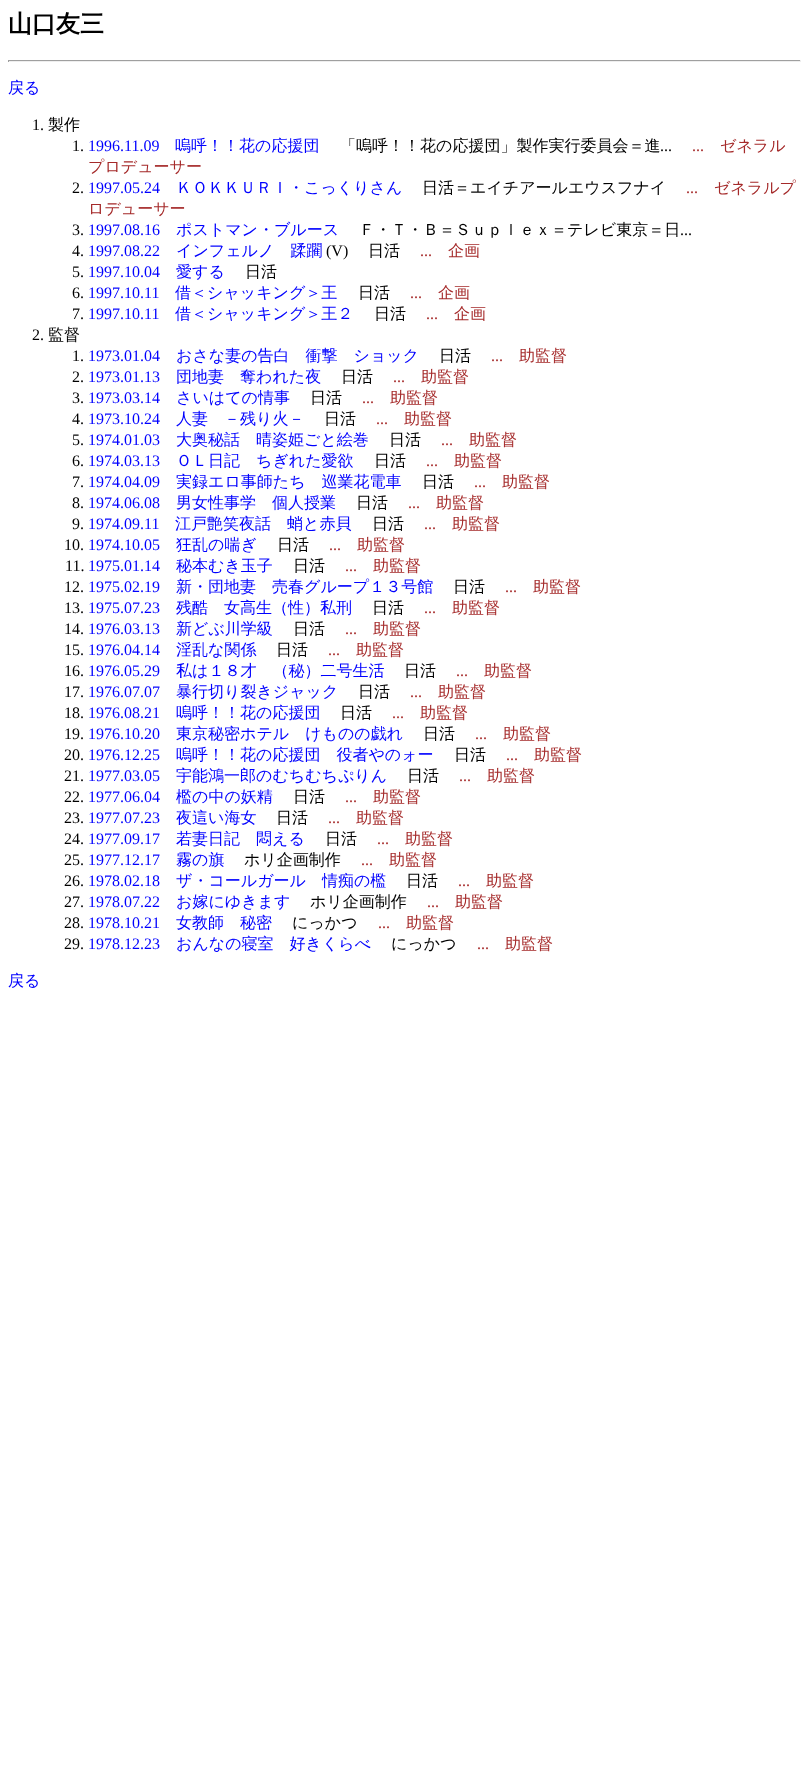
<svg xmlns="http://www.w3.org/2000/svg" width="809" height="1767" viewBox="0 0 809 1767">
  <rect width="100%" height="100%" fill="#fff"/>
  <path d="M8 60h793v1H8z" fill="#9f9f9f"/>
  <path d="M800 60h1v2H800z" fill="#eee"/>
  <path d="M8 61h793v1H8z" fill="#eee"/>
  <path d="M8 60h1v2H8z" fill="#9f9f9f"/>
  <text x="8" y="32" font-family="WenQuanYi Zen Hei" font-size="24" font-weight="bold" fill="#000">山口友三</text>
  <text x="8" y="93" font-family="WenQuanYi Zen Hei" font-size="16" font-weight="500" fill="#00f">戻る</text>
  <text x="32" y="130" font-family="Liberation Serif" font-size="16" fill="#000">1.</text>
  <text x="48" y="130" font-family="WenQuanYi Zen Hei" font-size="16" font-weight="500" fill="#000">製作</text>
  <text x="72" y="151" font-family="Liberation Serif" font-size="16" fill="#000">1.</text>
  <text x="88" y="151" font-family="Liberation Serif" font-size="16" fill="#00f">1996.11.09</text>
  <text x="175" y="151" font-family="WenQuanYi Zen Hei" font-size="16" font-weight="500" fill="#00f">嗚呼！！花の応援団</text>
  <text x="340" y="151" font-family="WenQuanYi Zen Hei" font-size="16" font-weight="500" fill="#000">「嗚呼！！花の応援団」製作実行委員会＝進</text>
  <text x="660" y="151" font-family="Liberation Serif" font-size="16" fill="#000">...</text>
  <text x="692" y="151" font-family="Liberation Serif" font-size="16" fill="#a52a2a">...</text>
  <g font-family="WenQuanYi Zen Hei" font-size="16" font-weight="500" fill="#a52a2a">
    <text x="720" y="151">ゼネラル</text>
    <text x="88" y="172">プロデューサー</text>
  </g>
  <text x="72" y="193" font-family="Liberation Serif" font-size="16" fill="#000">2.</text>
  <text x="88" y="193" font-family="Liberation Serif" font-size="16" fill="#00f">1997.05.24</text>
  <text x="176" y="193" font-family="WenQuanYi Zen Hei" font-size="16" font-weight="500" fill="#00f">ＫＯＫＫＵＲＩ・こっくりさん</text>
  <text x="422" y="193" font-family="WenQuanYi Zen Hei" font-size="16" font-weight="500" fill="#000">日活＝エイチアールエウスフナイ</text>
  <text x="686" y="193" font-family="Liberation Serif" font-size="16" fill="#a52a2a">...</text>
  <g font-family="WenQuanYi Zen Hei" font-size="16" font-weight="500" fill="#a52a2a">
    <text x="714" y="193">ゼネラルプ</text>
    <text x="88" y="214">ロデューサー</text>
  </g>
  <text x="72" y="235" font-family="Liberation Serif" font-size="16" fill="#000">3.</text>
  <text x="88" y="235" font-family="Liberation Serif" font-size="16" fill="#00f">1997.08.16</text>
  <text x="176" y="235" font-family="WenQuanYi Zen Hei" font-size="16" font-weight="500" fill="#00f">ポストマン・ブルース</text>
  <text x="359" y="235" font-family="WenQuanYi Zen Hei" font-size="16" font-weight="500" fill="#000">Ｆ・Ｔ・Ｂ＝Ｓｕｐｌｅｘ＝テレビ東京＝日</text>
  <g font-family="Liberation Serif" font-size="16" fill="#000">
    <text x="680" y="235">...</text>
    <text x="72" y="256">4.</text>
  </g>
  <text x="88" y="256" font-family="Liberation Serif" font-size="16" fill="#00f">1997.08.22</text>
  <text x="176" y="256" font-family="WenQuanYi Zen Hei" font-size="16" font-weight="500" fill="#00f">インフェルノ　蹂躙</text>
  <text x="326" y="256" font-family="Liberation Serif" font-size="16" fill="#000">(V)</text>
  <text x="368" y="256" font-family="WenQuanYi Zen Hei" font-size="16" font-weight="500" fill="#000">日活</text>
  <text x="420" y="256" font-family="Liberation Serif" font-size="16" fill="#a52a2a">...</text>
  <text x="448" y="256" font-family="WenQuanYi Zen Hei" font-size="16" font-weight="500" fill="#a52a2a">企画</text>
  <text x="72" y="277" font-family="Liberation Serif" font-size="16" fill="#000">5.</text>
  <text x="88" y="277" font-family="Liberation Serif" font-size="16" fill="#00f">1997.10.04</text>
  <text x="176" y="277" font-family="WenQuanYi Zen Hei" font-size="16" font-weight="500" fill="#00f">愛する</text>
  <text x="245" y="277" font-family="WenQuanYi Zen Hei" font-size="16" font-weight="500" fill="#000">日活</text>
  <text x="72" y="298" font-family="Liberation Serif" font-size="16" fill="#000">6.</text>
  <text x="88" y="298" font-family="Liberation Serif" font-size="16" fill="#00f">1997.10.11</text>
  <text x="175" y="298" font-family="WenQuanYi Zen Hei" font-size="16" font-weight="500" fill="#00f">借＜シャッキング＞王</text>
  <text x="358" y="298" font-family="WenQuanYi Zen Hei" font-size="16" font-weight="500" fill="#000">日活</text>
  <text x="410" y="298" font-family="Liberation Serif" font-size="16" fill="#a52a2a">...</text>
  <text x="438" y="298" font-family="WenQuanYi Zen Hei" font-size="16" font-weight="500" fill="#a52a2a">企画</text>
  <text x="72" y="319" font-family="Liberation Serif" font-size="16" fill="#000">7.</text>
  <text x="88" y="319" font-family="Liberation Serif" font-size="16" fill="#00f">1997.10.11</text>
  <text x="175" y="319" font-family="WenQuanYi Zen Hei" font-size="16" font-weight="500" fill="#00f">借＜シャッキング＞王２</text>
  <text x="374" y="319" font-family="WenQuanYi Zen Hei" font-size="16" font-weight="500" fill="#000">日活</text>
  <text x="426" y="319" font-family="Liberation Serif" font-size="16" fill="#a52a2a">...</text>
  <text x="454" y="319" font-family="WenQuanYi Zen Hei" font-size="16" font-weight="500" fill="#a52a2a">企画</text>
  <text x="32" y="340" font-family="Liberation Serif" font-size="16" fill="#000">2.</text>
  <text x="48" y="340" font-family="WenQuanYi Zen Hei" font-size="16" font-weight="500" fill="#000">監督</text>
  <text x="72" y="361" font-family="Liberation Serif" font-size="16" fill="#000">1.</text>
  <text x="88" y="361" font-family="Liberation Serif" font-size="16" fill="#00f">1973.01.04</text>
  <text x="176" y="361" font-family="WenQuanYi Zen Hei" font-size="16" font-weight="500" fill="#00f">おさな妻の告白　衝撃　ショック</text>
  <text x="439" y="361" font-family="WenQuanYi Zen Hei" font-size="16" font-weight="500" fill="#000">日活</text>
  <text x="491" y="361" font-family="Liberation Serif" font-size="16" fill="#a52a2a">...</text>
  <text x="519" y="361" font-family="WenQuanYi Zen Hei" font-size="16" font-weight="500" fill="#a52a2a">助監督</text>
  <text x="72" y="382" font-family="Liberation Serif" font-size="16" fill="#000">2.</text>
  <text x="88" y="382" font-family="Liberation Serif" font-size="16" fill="#00f">1973.01.13</text>
  <text x="176" y="382" font-family="WenQuanYi Zen Hei" font-size="16" font-weight="500" fill="#00f">団地妻　奪われた夜</text>
  <text x="341" y="382" font-family="WenQuanYi Zen Hei" font-size="16" font-weight="500" fill="#000">日活</text>
  <text x="393" y="382" font-family="Liberation Serif" font-size="16" fill="#a52a2a">...</text>
  <text x="421" y="382" font-family="WenQuanYi Zen Hei" font-size="16" font-weight="500" fill="#a52a2a">助監督</text>
  <text x="72" y="403" font-family="Liberation Serif" font-size="16" fill="#000">3.</text>
  <text x="88" y="403" font-family="Liberation Serif" font-size="16" fill="#00f">1973.03.14</text>
  <text x="176" y="403" font-family="WenQuanYi Zen Hei" font-size="16" font-weight="500" fill="#00f">さいはての情事</text>
  <text x="310" y="403" font-family="WenQuanYi Zen Hei" font-size="16" font-weight="500" fill="#000">日活</text>
  <text x="362" y="403" font-family="Liberation Serif" font-size="16" fill="#a52a2a">...</text>
  <text x="390" y="403" font-family="WenQuanYi Zen Hei" font-size="16" font-weight="500" fill="#a52a2a">助監督</text>
  <text x="72" y="424" font-family="Liberation Serif" font-size="16" fill="#000">4.</text>
  <text x="88" y="424" font-family="Liberation Serif" font-size="16" fill="#00f">1973.10.24</text>
  <text x="176" y="424" font-family="WenQuanYi Zen Hei" font-size="16" font-weight="500" fill="#00f">人妻　－残り火－</text>
  <text x="324" y="424" font-family="WenQuanYi Zen Hei" font-size="16" font-weight="500" fill="#000">日活</text>
  <text x="376" y="424" font-family="Liberation Serif" font-size="16" fill="#a52a2a">...</text>
  <text x="404" y="424" font-family="WenQuanYi Zen Hei" font-size="16" font-weight="500" fill="#a52a2a">助監督</text>
  <text x="72" y="445" font-family="Liberation Serif" font-size="16" fill="#000">5.</text>
  <text x="88" y="445" font-family="Liberation Serif" font-size="16" fill="#00f">1974.01.03</text>
  <text x="176" y="445" font-family="WenQuanYi Zen Hei" font-size="16" font-weight="500" fill="#00f">大奥秘話　晴姿姫ごと絵巻</text>
  <text x="389" y="445" font-family="WenQuanYi Zen Hei" font-size="16" font-weight="500" fill="#000">日活</text>
  <text x="441" y="445" font-family="Liberation Serif" font-size="16" fill="#a52a2a">...</text>
  <text x="469" y="445" font-family="WenQuanYi Zen Hei" font-size="16" font-weight="500" fill="#a52a2a">助監督</text>
  <text x="72" y="466" font-family="Liberation Serif" font-size="16" fill="#000">6.</text>
  <text x="88" y="466" font-family="Liberation Serif" font-size="16" fill="#00f">1974.03.13</text>
  <text x="176" y="466" font-family="WenQuanYi Zen Hei" font-size="16" font-weight="500" fill="#00f">ＯＬ日記　ちぎれた愛欲</text>
  <text x="374" y="466" font-family="WenQuanYi Zen Hei" font-size="16" font-weight="500" fill="#000">日活</text>
  <text x="426" y="466" font-family="Liberation Serif" font-size="16" fill="#a52a2a">...</text>
  <text x="454" y="466" font-family="WenQuanYi Zen Hei" font-size="16" font-weight="500" fill="#a52a2a">助監督</text>
  <text x="72" y="487" font-family="Liberation Serif" font-size="16" fill="#000">7.</text>
  <text x="88" y="487" font-family="Liberation Serif" font-size="16" fill="#00f">1974.04.09</text>
  <text x="176" y="487" font-family="WenQuanYi Zen Hei" font-size="16" font-weight="500" fill="#00f">実録エロ事師たち　巡業花電車</text>
  <text x="422" y="487" font-family="WenQuanYi Zen Hei" font-size="16" font-weight="500" fill="#000">日活</text>
  <text x="474" y="487" font-family="Liberation Serif" font-size="16" fill="#a52a2a">...</text>
  <text x="502" y="487" font-family="WenQuanYi Zen Hei" font-size="16" font-weight="500" fill="#a52a2a">助監督</text>
  <text x="72" y="508" font-family="Liberation Serif" font-size="16" fill="#000">8.</text>
  <text x="88" y="508" font-family="Liberation Serif" font-size="16" fill="#00f">1974.06.08</text>
  <text x="176" y="508" font-family="WenQuanYi Zen Hei" font-size="16" font-weight="500" fill="#00f">男女性事学　個人授業</text>
  <text x="356" y="508" font-family="WenQuanYi Zen Hei" font-size="16" font-weight="500" fill="#000">日活</text>
  <text x="408" y="508" font-family="Liberation Serif" font-size="16" fill="#a52a2a">...</text>
  <text x="436" y="508" font-family="WenQuanYi Zen Hei" font-size="16" font-weight="500" fill="#a52a2a">助監督</text>
  <text x="72" y="529" font-family="Liberation Serif" font-size="16" fill="#000">9.</text>
  <text x="88" y="529" font-family="Liberation Serif" font-size="16" fill="#00f">1974.09.11</text>
  <text x="175" y="529" font-family="WenQuanYi Zen Hei" font-size="16" font-weight="500" fill="#00f">江戸艶笑夜話　蛸と赤貝</text>
  <text x="372" y="529" font-family="WenQuanYi Zen Hei" font-size="16" font-weight="500" fill="#000">日活</text>
  <text x="424" y="529" font-family="Liberation Serif" font-size="16" fill="#a52a2a">...</text>
  <text x="452" y="529" font-family="WenQuanYi Zen Hei" font-size="16" font-weight="500" fill="#a52a2a">助監督</text>
  <text x="64" y="550" font-family="Liberation Serif" font-size="16" fill="#000">10.</text>
  <text x="88" y="550" font-family="Liberation Serif" font-size="16" fill="#00f">1974.10.05</text>
  <text x="176" y="550" font-family="WenQuanYi Zen Hei" font-size="16" font-weight="500" fill="#00f">狂乱の喘ぎ</text>
  <text x="277" y="550" font-family="WenQuanYi Zen Hei" font-size="16" font-weight="500" fill="#000">日活</text>
  <text x="329" y="550" font-family="Liberation Serif" font-size="16" fill="#a52a2a">...</text>
  <text x="357" y="550" font-family="WenQuanYi Zen Hei" font-size="16" font-weight="500" fill="#a52a2a">助監督</text>
  <text x="65" y="571" font-family="Liberation Serif" font-size="16" fill="#000">11.</text>
  <text x="88" y="571" font-family="Liberation Serif" font-size="16" fill="#00f">1975.01.14</text>
  <text x="176" y="571" font-family="WenQuanYi Zen Hei" font-size="16" font-weight="500" fill="#00f">秘本むき玉子</text>
  <text x="293" y="571" font-family="WenQuanYi Zen Hei" font-size="16" font-weight="500" fill="#000">日活</text>
  <text x="345" y="571" font-family="Liberation Serif" font-size="16" fill="#a52a2a">...</text>
  <text x="373" y="571" font-family="WenQuanYi Zen Hei" font-size="16" font-weight="500" fill="#a52a2a">助監督</text>
  <text x="64" y="592" font-family="Liberation Serif" font-size="16" fill="#000">12.</text>
  <text x="88" y="592" font-family="Liberation Serif" font-size="16" fill="#00f">1975.02.19</text>
  <text x="176" y="592" font-family="WenQuanYi Zen Hei" font-size="16" font-weight="500" fill="#00f">新・団地妻　売春グループ１３号館</text>
  <text x="453" y="592" font-family="WenQuanYi Zen Hei" font-size="16" font-weight="500" fill="#000">日活</text>
  <text x="505" y="592" font-family="Liberation Serif" font-size="16" fill="#a52a2a">...</text>
  <text x="533" y="592" font-family="WenQuanYi Zen Hei" font-size="16" font-weight="500" fill="#a52a2a">助監督</text>
  <text x="64" y="613" font-family="Liberation Serif" font-size="16" fill="#000">13.</text>
  <text x="88" y="613" font-family="Liberation Serif" font-size="16" fill="#00f">1975.07.23</text>
  <text x="176" y="613" font-family="WenQuanYi Zen Hei" font-size="16" font-weight="500" fill="#00f">残酷　女高生（性）私刑</text>
  <text x="372" y="613" font-family="WenQuanYi Zen Hei" font-size="16" font-weight="500" fill="#000">日活</text>
  <text x="424" y="613" font-family="Liberation Serif" font-size="16" fill="#a52a2a">...</text>
  <text x="452" y="613" font-family="WenQuanYi Zen Hei" font-size="16" font-weight="500" fill="#a52a2a">助監督</text>
  <text x="64" y="634" font-family="Liberation Serif" font-size="16" fill="#000">14.</text>
  <text x="88" y="634" font-family="Liberation Serif" font-size="16" fill="#00f">1976.03.13</text>
  <text x="176" y="634" font-family="WenQuanYi Zen Hei" font-size="16" font-weight="500" fill="#00f">新どぶ川学級</text>
  <text x="293" y="634" font-family="WenQuanYi Zen Hei" font-size="16" font-weight="500" fill="#000">日活</text>
  <text x="345" y="634" font-family="Liberation Serif" font-size="16" fill="#a52a2a">...</text>
  <text x="373" y="634" font-family="WenQuanYi Zen Hei" font-size="16" font-weight="500" fill="#a52a2a">助監督</text>
  <text x="64" y="655" font-family="Liberation Serif" font-size="16" fill="#000">15.</text>
  <text x="88" y="655" font-family="Liberation Serif" font-size="16" fill="#00f">1976.04.14</text>
  <text x="176" y="655" font-family="WenQuanYi Zen Hei" font-size="16" font-weight="500" fill="#00f">淫乱な関係</text>
  <text x="276" y="655" font-family="WenQuanYi Zen Hei" font-size="16" font-weight="500" fill="#000">日活</text>
  <text x="328" y="655" font-family="Liberation Serif" font-size="16" fill="#a52a2a">...</text>
  <text x="356" y="655" font-family="WenQuanYi Zen Hei" font-size="16" font-weight="500" fill="#a52a2a">助監督</text>
  <text x="64" y="676" font-family="Liberation Serif" font-size="16" fill="#000">16.</text>
  <text x="88" y="676" font-family="Liberation Serif" font-size="16" fill="#00f">1976.05.29</text>
  <text x="176" y="676" font-family="WenQuanYi Zen Hei" font-size="16" font-weight="500" fill="#00f">私は１８才　（秘）二号生活</text>
  <text x="404" y="676" font-family="WenQuanYi Zen Hei" font-size="16" font-weight="500" fill="#000">日活</text>
  <text x="456" y="676" font-family="Liberation Serif" font-size="16" fill="#a52a2a">...</text>
  <text x="484" y="676" font-family="WenQuanYi Zen Hei" font-size="16" font-weight="500" fill="#a52a2a">助監督</text>
  <text x="64" y="697" font-family="Liberation Serif" font-size="16" fill="#000">17.</text>
  <text x="88" y="697" font-family="Liberation Serif" font-size="16" fill="#00f">1976.07.07</text>
  <text x="176" y="697" font-family="WenQuanYi Zen Hei" font-size="16" font-weight="500" fill="#00f">暴行切り裂きジャック</text>
  <text x="358" y="697" font-family="WenQuanYi Zen Hei" font-size="16" font-weight="500" fill="#000">日活</text>
  <text x="410" y="697" font-family="Liberation Serif" font-size="16" fill="#a52a2a">...</text>
  <text x="438" y="697" font-family="WenQuanYi Zen Hei" font-size="16" font-weight="500" fill="#a52a2a">助監督</text>
  <text x="64" y="718" font-family="Liberation Serif" font-size="16" fill="#000">18.</text>
  <text x="88" y="718" font-family="Liberation Serif" font-size="16" fill="#00f">1976.08.21</text>
  <text x="176" y="718" font-family="WenQuanYi Zen Hei" font-size="16" font-weight="500" fill="#00f">嗚呼！！花の応援団</text>
  <text x="340" y="718" font-family="WenQuanYi Zen Hei" font-size="16" font-weight="500" fill="#000">日活</text>
  <text x="392" y="718" font-family="Liberation Serif" font-size="16" fill="#a52a2a">...</text>
  <text x="420" y="718" font-family="WenQuanYi Zen Hei" font-size="16" font-weight="500" fill="#a52a2a">助監督</text>
  <text x="64" y="739" font-family="Liberation Serif" font-size="16" fill="#000">19.</text>
  <text x="88" y="739" font-family="Liberation Serif" font-size="16" fill="#00f">1976.10.20</text>
  <text x="176" y="739" font-family="WenQuanYi Zen Hei" font-size="16" font-weight="500" fill="#00f">東京秘密ホテル　けものの戯れ</text>
  <text x="423" y="739" font-family="WenQuanYi Zen Hei" font-size="16" font-weight="500" fill="#000">日活</text>
  <text x="475" y="739" font-family="Liberation Serif" font-size="16" fill="#a52a2a">...</text>
  <text x="503" y="739" font-family="WenQuanYi Zen Hei" font-size="16" font-weight="500" fill="#a52a2a">助監督</text>
  <text x="64" y="760" font-family="Liberation Serif" font-size="16" fill="#000">20.</text>
  <text x="88" y="760" font-family="Liberation Serif" font-size="16" fill="#00f">1976.12.25</text>
  <text x="176" y="760" font-family="WenQuanYi Zen Hei" font-size="16" font-weight="500" fill="#00f">嗚呼！！花の応援団　役者やのォー</text>
  <text x="454" y="760" font-family="WenQuanYi Zen Hei" font-size="16" font-weight="500" fill="#000">日活</text>
  <text x="506" y="760" font-family="Liberation Serif" font-size="16" fill="#a52a2a">...</text>
  <text x="534" y="760" font-family="WenQuanYi Zen Hei" font-size="16" font-weight="500" fill="#a52a2a">助監督</text>
  <text x="64" y="781" font-family="Liberation Serif" font-size="16" fill="#000">21.</text>
  <text x="88" y="781" font-family="Liberation Serif" font-size="16" fill="#00f">1977.03.05</text>
  <text x="176" y="781" font-family="WenQuanYi Zen Hei" font-size="16" font-weight="500" fill="#00f">宇能鴻一郎のむちむちぷりん</text>
  <text x="407" y="781" font-family="WenQuanYi Zen Hei" font-size="16" font-weight="500" fill="#000">日活</text>
  <text x="459" y="781" font-family="Liberation Serif" font-size="16" fill="#a52a2a">...</text>
  <text x="487" y="781" font-family="WenQuanYi Zen Hei" font-size="16" font-weight="500" fill="#a52a2a">助監督</text>
  <text x="64" y="802" font-family="Liberation Serif" font-size="16" fill="#000">22.</text>
  <text x="88" y="802" font-family="Liberation Serif" font-size="16" fill="#00f">1977.06.04</text>
  <text x="176" y="802" font-family="WenQuanYi Zen Hei" font-size="16" font-weight="500" fill="#00f">檻の中の妖精</text>
  <text x="293" y="802" font-family="WenQuanYi Zen Hei" font-size="16" font-weight="500" fill="#000">日活</text>
  <text x="345" y="802" font-family="Liberation Serif" font-size="16" fill="#a52a2a">...</text>
  <text x="373" y="802" font-family="WenQuanYi Zen Hei" font-size="16" font-weight="500" fill="#a52a2a">助監督</text>
  <text x="64" y="823" font-family="Liberation Serif" font-size="16" fill="#000">23.</text>
  <text x="88" y="823" font-family="Liberation Serif" font-size="16" fill="#00f">1977.07.23</text>
  <text x="176" y="823" font-family="WenQuanYi Zen Hei" font-size="16" font-weight="500" fill="#00f">夜這い海女</text>
  <text x="276" y="823" font-family="WenQuanYi Zen Hei" font-size="16" font-weight="500" fill="#000">日活</text>
  <text x="328" y="823" font-family="Liberation Serif" font-size="16" fill="#a52a2a">...</text>
  <text x="356" y="823" font-family="WenQuanYi Zen Hei" font-size="16" font-weight="500" fill="#a52a2a">助監督</text>
  <text x="64" y="844" font-family="Liberation Serif" font-size="16" fill="#000">24.</text>
  <text x="88" y="844" font-family="Liberation Serif" font-size="16" fill="#00f">1977.09.17</text>
  <text x="176" y="844" font-family="WenQuanYi Zen Hei" font-size="16" font-weight="500" fill="#00f">若妻日記　悶える</text>
  <text x="325" y="844" font-family="WenQuanYi Zen Hei" font-size="16" font-weight="500" fill="#000">日活</text>
  <text x="377" y="844" font-family="Liberation Serif" font-size="16" fill="#a52a2a">...</text>
  <text x="405" y="844" font-family="WenQuanYi Zen Hei" font-size="16" font-weight="500" fill="#a52a2a">助監督</text>
  <text x="64" y="865" font-family="Liberation Serif" font-size="16" fill="#000">25.</text>
  <text x="88" y="865" font-family="Liberation Serif" font-size="16" fill="#00f">1977.12.17</text>
  <text x="176" y="865" font-family="WenQuanYi Zen Hei" font-size="16" font-weight="500" fill="#00f">霧の旗</text>
  <text x="244" y="865" font-family="WenQuanYi Zen Hei" font-size="16" font-weight="500" fill="#000">ホリ企画制作</text>
  <text x="361" y="865" font-family="Liberation Serif" font-size="16" fill="#a52a2a">...</text>
  <text x="389" y="865" font-family="WenQuanYi Zen Hei" font-size="16" font-weight="500" fill="#a52a2a">助監督</text>
  <text x="64" y="886" font-family="Liberation Serif" font-size="16" fill="#000">26.</text>
  <text x="88" y="886" font-family="Liberation Serif" font-size="16" fill="#00f">1978.02.18</text>
  <text x="176" y="886" font-family="WenQuanYi Zen Hei" font-size="16" font-weight="500" fill="#00f">ザ・コールガール　情痴の檻</text>
  <text x="406" y="886" font-family="WenQuanYi Zen Hei" font-size="16" font-weight="500" fill="#000">日活</text>
  <text x="458" y="886" font-family="Liberation Serif" font-size="16" fill="#a52a2a">...</text>
  <text x="486" y="886" font-family="WenQuanYi Zen Hei" font-size="16" font-weight="500" fill="#a52a2a">助監督</text>
  <text x="64" y="907" font-family="Liberation Serif" font-size="16" fill="#000">27.</text>
  <text x="88" y="907" font-family="Liberation Serif" font-size="16" fill="#00f">1978.07.22</text>
  <text x="176" y="907" font-family="WenQuanYi Zen Hei" font-size="16" font-weight="500" fill="#00f">お嫁にゆきます</text>
  <text x="310" y="907" font-family="WenQuanYi Zen Hei" font-size="16" font-weight="500" fill="#000">ホリ企画制作</text>
  <text x="427" y="907" font-family="Liberation Serif" font-size="16" fill="#a52a2a">...</text>
  <text x="455" y="907" font-family="WenQuanYi Zen Hei" font-size="16" font-weight="500" fill="#a52a2a">助監督</text>
  <text x="64" y="928" font-family="Liberation Serif" font-size="16" fill="#000">28.</text>
  <text x="88" y="928" font-family="Liberation Serif" font-size="16" fill="#00f">1978.10.21</text>
  <text x="176" y="928" font-family="WenQuanYi Zen Hei" font-size="16" font-weight="500" fill="#00f">女教師　秘密</text>
  <text x="292" y="928" font-family="WenQuanYi Zen Hei" font-size="16" font-weight="500" fill="#000">にっかつ</text>
  <text x="378" y="928" font-family="Liberation Serif" font-size="16" fill="#a52a2a">...</text>
  <text x="406" y="928" font-family="WenQuanYi Zen Hei" font-size="16" font-weight="500" fill="#a52a2a">助監督</text>
  <text x="64" y="949" font-family="Liberation Serif" font-size="16" fill="#000">29.</text>
  <text x="88" y="949" font-family="Liberation Serif" font-size="16" fill="#00f">1978.12.23</text>
  <text x="176" y="949" font-family="WenQuanYi Zen Hei" font-size="16" font-weight="500" fill="#00f">おんなの寝室　好きくらべ</text>
  <text x="391" y="949" font-family="WenQuanYi Zen Hei" font-size="16" font-weight="500" fill="#000">にっかつ</text>
  <text x="477" y="949" font-family="Liberation Serif" font-size="16" fill="#a52a2a">...</text>
  <text x="505" y="949" font-family="WenQuanYi Zen Hei" font-size="16" font-weight="500" fill="#a52a2a">助監督</text>
  <text x="8" y="986" font-family="WenQuanYi Zen Hei" font-size="16" font-weight="500" fill="#00f">戻る</text>
</svg>
